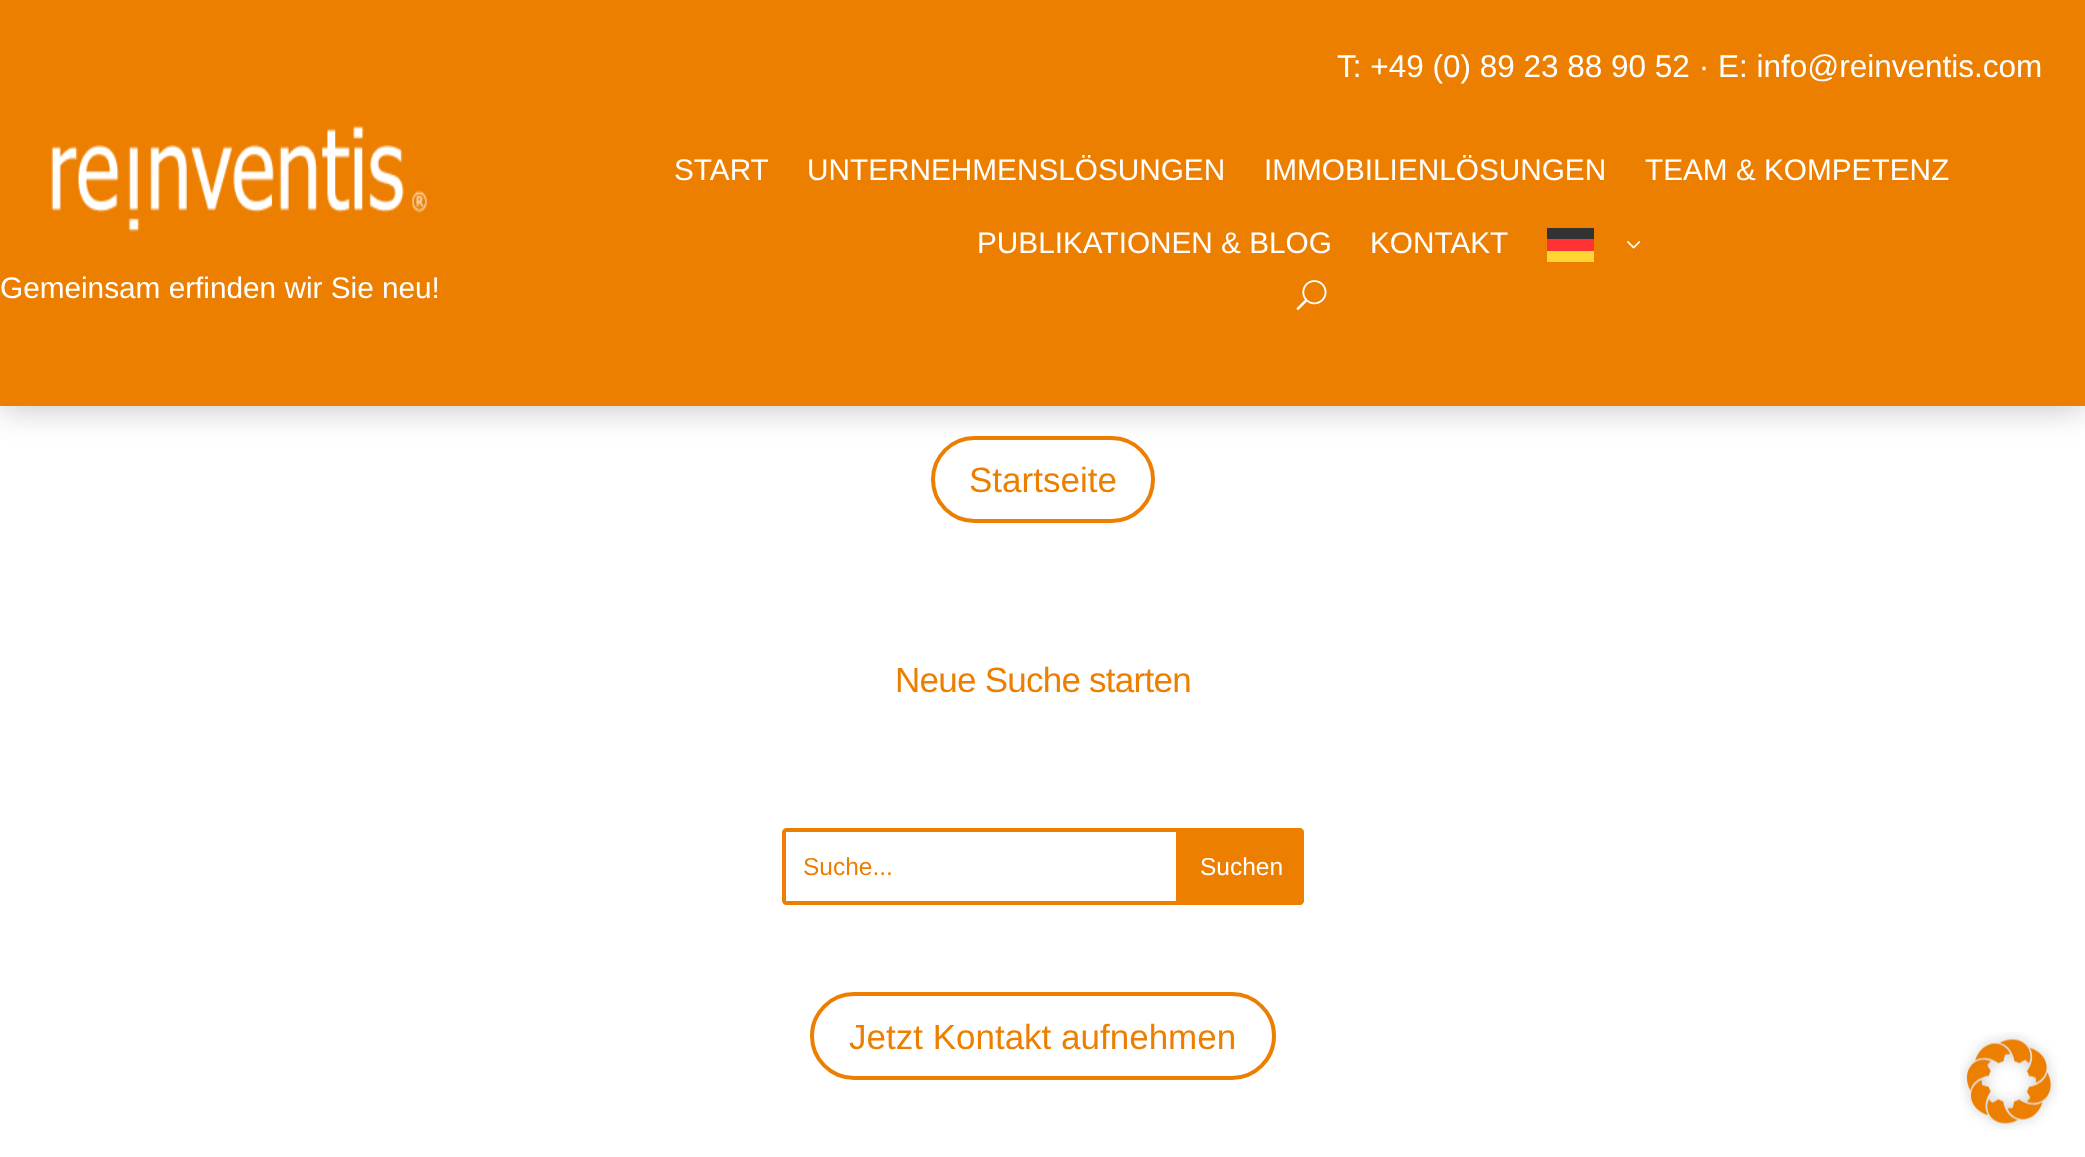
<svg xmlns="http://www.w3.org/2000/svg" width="2085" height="1157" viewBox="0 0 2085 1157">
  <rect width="100%" height="100%" fill="#fff"/>
  <rect x="933" y="438" width="220" height="83" rx="41.5" fill="none" stroke="#ed7f00" stroke-width="4"/>
  <path d="M0 4h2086v406H0z" fill="#00000036" filter="blur(16px)"/>
  <path d="M0 0h2085v406H0z" fill="#ed7f00"/>
  <path d="M1547 251h47v11H1547z" fill="#ffd633"/>
  <path d="M1547 228h47v11H1547z" fill="#333334"/>
  <path d="M1547 239h47v12H1547z" fill="#f33"/>
  <image x="1627" y="241" width="14" height="8" href="img/1.png"/>
  <image x="1296" y="280" width="31" height="30" href="img/2.png"/>
  <image x="51" y="125" width="376" height="107" href="img/3.png"/>
  <path d="M787 828C784 828 782 830 782 833V900C782 903 784 905 787 905H1180V828ZM786 832V901H1176V832Z" fill="#ed7f00" fill-rule="evenodd"/>
  <path d="M1180 828H1299C1302 828 1304 830 1304 833V900C1304 903 1302 905 1299 905H1180Z" fill="#ed7f00"/>
  <path d="M1180 828V905H1299C1302 905 1304 903 1304 900V833C1304 830 1302 828 1299 828ZM1184 832V901H1300V832Z" fill="#ed7f00" fill-rule="evenodd"/>
  <rect x="812" y="994" width="462" height="84" rx="42" fill="none" stroke="#ed7f00" stroke-width="4"/>
  <image x="1960" y="1032" width="98" height="98" href="img/4.png"/>
  <text x="1337" y="77" font-family="Liberation Sans" font-size="31.5" fill="#fff">T: +49 (0) 89 23 88 90 52 · E: info@reinventis.com</text>
  <g font-family="Liberation Sans" font-size="29.75" fill="#fff">
    <text x="674" y="180">START</text>
    <text x="807" y="180">UNTERNEHMENSLÖSUNGEN</text>
    <text x="1264" y="180">IMMOBILIENLÖSUNGEN</text>
    <text x="1645" y="180">TEAM &amp; KOMPETENZ</text>
    <text x="977" y="253">PUBLIKATIONEN &amp; BLOG</text>
    <text x="1370" y="253">KONTAKT</text>
    <text x="0" y="298">Gemeinsam erfinden wir Sie neu!</text>
  </g>
  <text x="969" y="492" font-family="Liberation Sans" font-size="35" fill="#ed7f00">Startseite</text>
  <text x="895" y="692" font-family="Liberation Sans" font-size="35" letter-spacing="-0.75" fill="#ed7f00">Neue Suche starten</text>
  <text x="803" y="875" font-family="Liberation Sans" font-size="24.5" fill="#ed7f00">Suche...</text>
  <text x="1200" y="875" font-family="Liberation Sans" font-size="24.5" fill="#fff">Suchen</text>
  <text x="849" y="1049" font-family="Liberation Sans" font-size="35" fill="#ed7f00">Jetzt Kontakt aufnehmen</text>
</svg>
